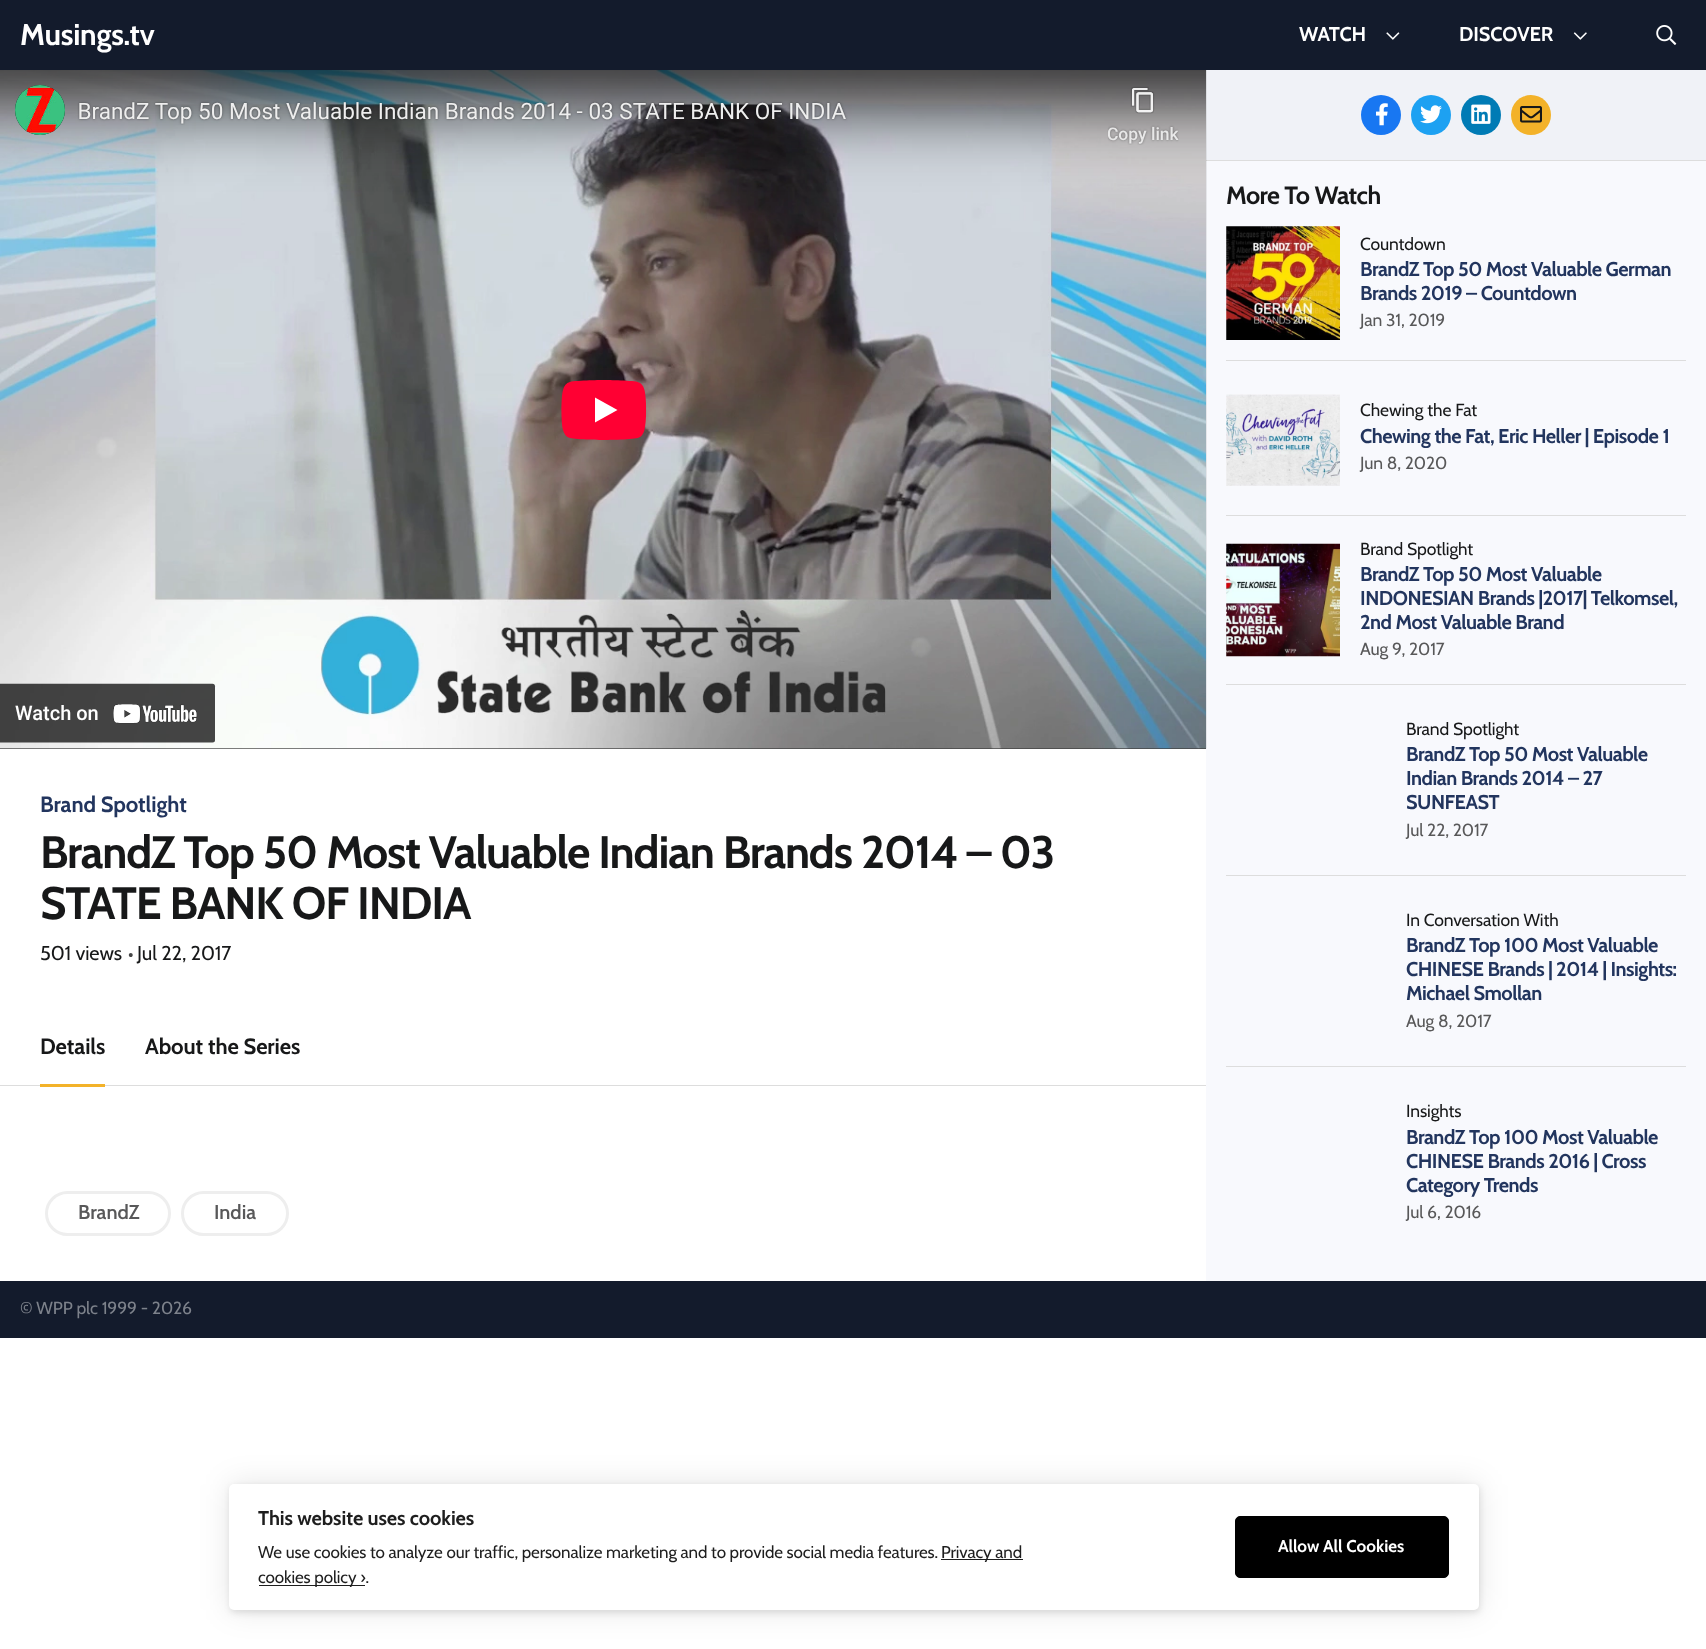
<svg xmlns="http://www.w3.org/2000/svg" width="1706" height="1649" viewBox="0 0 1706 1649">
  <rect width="100%" height="100%" fill="#fff"/>
  <path d="M0 0h1706v70H0z" fill="#131b2c"/>
  <image x="1386" y="32" width="14" height="8" href="img/1.png"/>
  <image x="1573" y="32" width="14" height="8" href="img/2.png"/>
  <image x="1656" y="25" width="21" height="20" href="img/3.png"/>
  <path d="M1206 161h500v1120H1206z" fill="#f8f9fd"/>
  <path d="M1206 70h500v90H1206z" fill="#f0f2f7"/>
  <path d="M1206 160h500v1H1206z" fill="#ddd"/>
  <image x="0" y="70" width="1207" height="679" href="img/4.png"/>
  <circle cx="1381" cy="115" r="20" fill="#1877f2"/>
  <image x="1376" y="103" width="12" height="23" href="img/5.png"/>
  <circle cx="1431" cy="115" r="20" fill="#1da1f2"/>
  <image x="1420" y="105" width="22" height="19" href="img/6.png"/>
  <circle cx="1481" cy="115" r="20" fill="#007bb5"/>
  <image x="1471" y="104" width="20" height="20" href="img/7.png"/>
  <circle cx="1531" cy="115" r="20" fill="#f3b229"/>
  <image x="1520" y="106" width="22" height="17" href="img/8.png"/>
  <path d="M1226 360h460v1H1226z" fill="#ddd"/>
  <image x="1226" y="226" width="114" height="114" href="img/9.png"/>
  <path d="M1226 515h460v1H1226z" fill="#ddd"/>
  <image x="1226" y="394" width="114" height="92" href="img/10.png"/>
  <path d="M1226 684h460v1H1226z" fill="#ddd"/>
  <image x="1226" y="543" width="114" height="114" href="img/11.png"/>
  <path d="M1226 875h460v1H1226z" fill="#ddd"/>
  <path d="M1226 1066h460v1H1226z" fill="#ddd"/>
  <path d="M0 1085h1206v1H0z" fill="#ddd"/>
  <path d="M40 1084h65v3H40z" fill="#f3b229"/>
  <rect x="46.5" y="1192.5" width="123" height="42" rx="21" fill="none" stroke="#eee" stroke-width="3"/>
  <rect x="182.5" y="1192.5" width="105" height="42" rx="21" fill="none" stroke="#eee" stroke-width="3"/>
  <path d="M0 1281h1706v57H0z" fill="#131b2c"/>
  <rect x="230" y="1486" width="1250" height="127" rx="5" fill="#0000001a" filter="blur(3px)"/>
  <rect x="229" y="1484" width="1250" height="126" rx="5" fill="#0000001a" filter="blur(15.5px)"/>
  <rect x="229" y="1484" width="1250" height="126" rx="5" fill="#fff"/>
  <path d="M941 1559h82v1H941z" fill="#1e1e1e"/>
  <path d="M259 1585h106v1H259z" fill="#1e1e1e"/>
  <rect x="1235.5" y="1516.5" width="213" height="61" rx="4.5" fill="#000" stroke="#000"/>
  <text x="20" y="45" font-family="Cabin" font-size="30" font-weight="bold" letter-spacing="-0.25" fill="#fff">Musings.tv</text>
  <g font-family="Cabin" font-size="20" font-weight="bold" letter-spacing="-0.1" fill="#fff">
    <text x="1299" y="41">WATCH</text>
    <text x="1459" y="41">DISCOVER</text>
  </g>
  <text x="1226" y="204" font-family="Cabin" font-size="25" font-weight="bold" letter-spacing="-0.6" fill="#171819">More To Watch</text>
  <text x="1360" y="250" font-family="Cabin" font-size="17.5" letter-spacing="-0.1" fill="#171819">Countdown</text>
  <g font-family="Cabin" font-size="20" font-weight="bold" letter-spacing="-0.5" fill="#22355e">
    <text x="1360" y="276">BrandZ Top 50 Most Valuable German</text>
    <text x="1360" y="300">Brands 2019 – Countdown</text>
  </g>
  <text x="1360" y="326" font-family="Cabin" font-size="17.5" letter-spacing="-0.1" fill="#585859">Jan 31, 2019</text>
  <text x="1360" y="416" font-family="Cabin" font-size="17.5" letter-spacing="-0.1" fill="#171819">Chewing the Fat</text>
  <text x="1360" y="443" font-family="Cabin" font-size="20" font-weight="bold" letter-spacing="-0.5" fill="#22355e">Chewing the Fat, Eric Heller | Episode 1</text>
  <text x="1360" y="469" font-family="Cabin" font-size="17.5" letter-spacing="-0.1" fill="#585859">Jun 8, 2020</text>
  <text x="1360" y="555" font-family="Cabin" font-size="17.5" letter-spacing="-0.1" fill="#171819">Brand Spotlight</text>
  <g font-family="Cabin" font-size="20" font-weight="bold" letter-spacing="-0.5" fill="#22355e">
    <text x="1360" y="581">BrandZ Top 50 Most Valuable</text>
    <text x="1360" y="605">INDONESIAN Brands |2017| Telkomsel,</text>
    <text x="1360" y="629">2nd Most Valuable Brand</text>
  </g>
  <text x="1360" y="655" font-family="Cabin" font-size="17.5" letter-spacing="-0.1" fill="#585859">Aug 9, 2017</text>
  <text x="1406" y="735" font-family="Cabin" font-size="17.5" letter-spacing="-0.1" fill="#171819">Brand Spotlight</text>
  <g font-family="Cabin" font-size="20" font-weight="bold" letter-spacing="-0.5" fill="#22355e">
    <text x="1406" y="761">BrandZ Top 50 Most Valuable</text>
    <text x="1406" y="785">Indian Brands 2014 – 27</text>
    <text x="1406" y="809">SUNFEAST</text>
  </g>
  <text x="1406" y="836" font-family="Cabin" font-size="17.5" letter-spacing="-0.1" fill="#585859">Jul 22, 2017</text>
  <text x="1406" y="926" font-family="Cabin" font-size="17.5" letter-spacing="-0.1" fill="#171819">In Conversation With</text>
  <g font-family="Cabin" font-size="20" font-weight="bold" letter-spacing="-0.5" fill="#22355e">
    <text x="1406" y="952">BrandZ Top 100 Most Valuable</text>
    <text x="1406" y="976">CHINESE Brands | 2014 | Insights:</text>
    <text x="1406" y="1000">Michael Smollan</text>
  </g>
  <text x="1406" y="1027" font-family="Cabin" font-size="17.5" letter-spacing="-0.1" fill="#585859">Aug 8, 2017</text>
  <text x="1406" y="1117" font-family="Cabin" font-size="17.5" letter-spacing="-0.1" fill="#171819">Insights</text>
  <g font-family="Cabin" font-size="20" font-weight="bold" letter-spacing="-0.5" fill="#22355e">
    <text x="1406" y="1144">BrandZ Top 100 Most Valuable</text>
    <text x="1406" y="1168">CHINESE Brands 2016 | Cross</text>
    <text x="1406" y="1192">Category Trends</text>
  </g>
  <text x="1406" y="1218" font-family="Cabin" font-size="17.5" letter-spacing="-0.1" fill="#585859">Jul 6, 2016</text>
  <text x="40" y="812" font-family="Cabin" font-size="22" font-weight="bold" letter-spacing="-0.1" fill="#22355e">Brand Spotlight</text>
  <g font-family="Cabin" font-size="45.5" font-weight="bold" letter-spacing="-1.15" fill="#171819">
    <text x="40" y="868">BrandZ Top 50 Most Valuable Indian Brands 2014 – 03</text>
    <text x="40" y="919">STATE BANK OF INDIA</text>
  </g>
  <text x="40" y="960" font-family="Cabin" font-size="20" letter-spacing="-0.1" fill="#171819">501 views</text>
  <text x="128" y="960" font-family="Cabin" font-size="18" letter-spacing="-0.1" fill="#454647">•</text>
  <text x="137" y="960" font-family="Cabin" font-size="20" letter-spacing="-0.1" fill="#171819">Jul 22, 2017</text>
  <g font-family="Cabin" font-size="22" font-weight="bold" letter-spacing="-0.1" fill="#171819">
    <text x="40" y="1054">Details</text>
    <text x="145" y="1054">About the Series</text>
  </g>
  <g font-family="Cabin" font-size="20" font-weight="600" fill="#585859">
    <text x="78" y="1219">BrandZ</text>
    <text x="214" y="1219">India</text>
  </g>
  <text x="20" y="1314" font-family="Cabin" font-size="17.5" letter-spacing="-0.1" fill="#7d828b">© WPP plc 1999 - 2026</text>
  <text x="258" y="1525" font-family="Cabin" font-size="20" font-weight="bold" letter-spacing="-0.1" fill="#1e1e1e">This website uses cookies</text>
  <g font-family="Cabin" font-size="17" letter-spacing="-0.1" fill="#1e1e1e">
    <text x="258" y="1558">We use cookies to analyze our traffic, personalize marketing and to provide social media features.</text>
    <text x="941" y="1558">Privacy and</text>
    <text x="258" y="1583">cookies policy ›.</text>
  </g>
  <text x="1278" y="1552" font-family="Cabin" font-size="17" font-weight="bold" fill="#fff">Allow All Cookies</text>
</svg>
